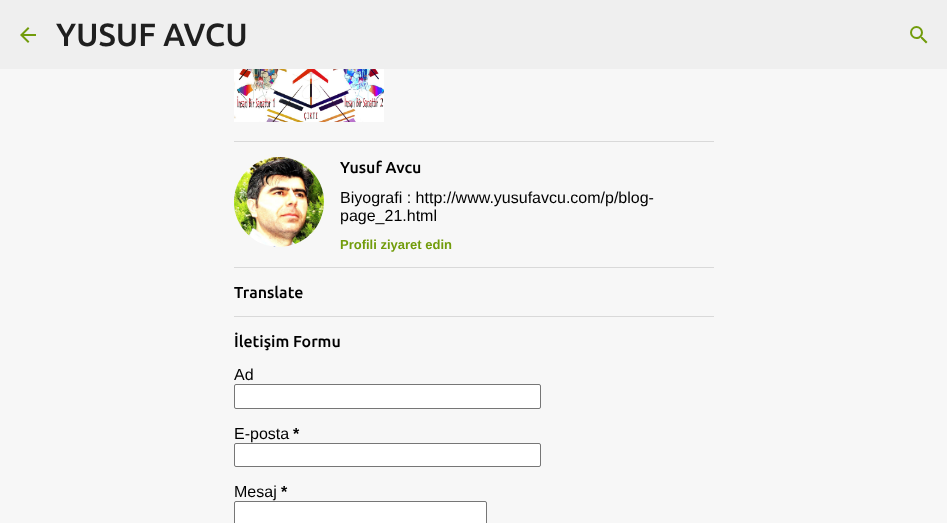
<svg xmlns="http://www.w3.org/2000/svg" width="947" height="523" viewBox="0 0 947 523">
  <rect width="100%" height="100%" fill="#f7f7f7"/>
  <path d="M0 0h947v69H0z" fill="#efefef"/>
  <image x="20" y="27" width="16" height="16" href="img/1.png"/>
  <image x="910" y="26" width="18" height="18" href="img/2.png"/>
  <image x="234" y="69" width="150" height="53" href="img/3.png"/>
  <path d="M234 141h480v1H234z" fill="#d9d9d9"/>
  <image x="234" y="157" width="90" height="90" href="img/4.png"/>
  <path d="M234 267h480v1H234z" fill="#d9d9d9"/>
  <path d="M234 316h480v1H234z" fill="#d9d9d9"/>
  <rect x="234.5" y="384.5" width="306" height="24" rx="1.5" fill="#fff" stroke="#767676"/>
  <rect x="234.5" y="443.5" width="306" height="23" rx="1.5" fill="#fff" stroke="#767676"/>
  <rect x="234.5" y="501.5" width="252" height="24" rx="1.5" fill="#fff" stroke="#767676"/>
  <text x="56" y="46" font-family="Ubuntu" font-size="32" font-weight="500" fill="#1f1f1f">YUSUF AVCU</text>
  <text x="340" y="173" font-family="Ubuntu" font-size="16" font-weight="500" fill="#000">Yusuf Avcu</text>
  <g font-family="Liberation Sans" font-size="16" fill="#000">
    <text x="340" y="203">Biyografi : http://www.yusufavcu.com/p/blog-</text>
    <text x="340" y="221">page_21.html</text>
  </g>
  <text x="340" y="249" font-family="Liberation Sans" font-size="13" font-weight="bold" fill="#729c0b">Profili ziyaret edin</text>
  <g font-family="Ubuntu" font-size="16" font-weight="500" fill="#000">
    <text x="234" y="298">Translate</text>
    <text x="234" y="347">İletişim Formu</text>
  </g>
  <g font-family="Liberation Sans" font-size="16" fill="#000">
    <text x="234" y="380">Ad</text>
    <text x="234" y="439">E-posta</text>
  </g>
  <text x="293" y="439" font-family="Liberation Sans" font-size="16" font-weight="bold" fill="#000">*</text>
  <text x="234" y="497" font-family="Liberation Sans" font-size="16" fill="#000">Mesaj</text>
  <text x="281" y="497" font-family="Liberation Sans" font-size="16" font-weight="bold" fill="#000">*</text>
</svg>
